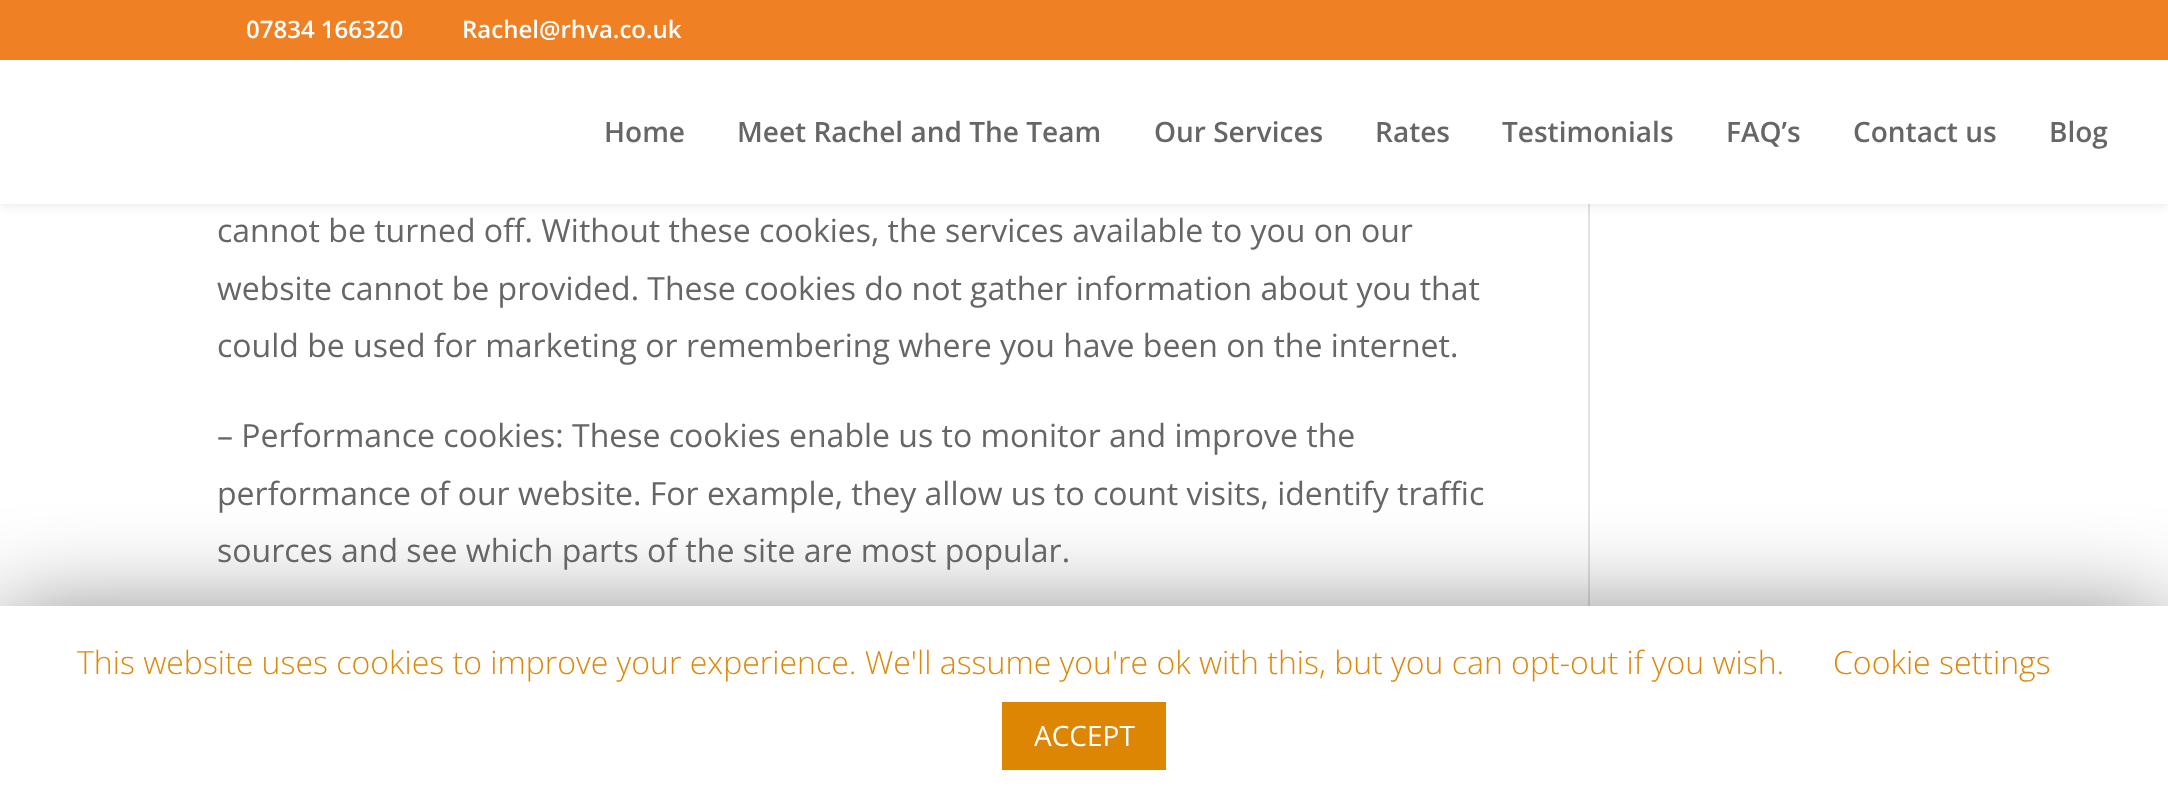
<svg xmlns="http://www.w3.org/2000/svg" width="2168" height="806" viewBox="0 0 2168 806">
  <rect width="100%" height="100%" fill="#fff"/>
  <path d="M1588 204h2v402H1588z" fill="#e2e2e2"/>
  <path d="M0 60h2168v144H0z" fill="#0000001a" filter="blur(7px)"/>
  <path d="M0 0h2168v60H0z" fill="#ef8023"/>
  <path d="M0 60h2168v144H0z" fill="#fff"/>
  <path d="M0 616h2168v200H0z" fill="#00000080" filter="blur(50px)"/>
  <path d="M0 606h2168v200H0z" fill="#fff"/>
  <path d="M1002 702h164v68H1002z" fill="#dd8604"/>
  <g font-family="Open Sans" font-size="24" font-weight="600" fill="#fff">
    <text x="246" y="38">07834 166320</text>
    <text x="462" y="38">Rachel@rhva.co.uk</text>
  </g>
  <g font-family="Open Sans" font-size="28" font-weight="600" fill="#666">
    <text x="604" y="142">Home</text>
    <text x="737" y="142">Meet Rachel and The Team</text>
    <text x="1154" y="142">Our Services</text>
    <text x="1375" y="142">Rates</text>
    <text x="1502" y="142">Testimonials</text>
    <text x="1726" y="142">FAQ’s</text>
    <text x="1853" y="142">Contact us</text>
    <text x="2049" y="142">Blog</text>
  </g>
  <g font-family="Open Sans" font-size="32" fill="#666">
    <text x="217" y="242">cannot be turned off. Without these cookies, the services available to you on our</text>
    <text x="217" y="300">website cannot be provided. These cookies do not gather information about you that</text>
    <text x="217" y="357">could be used for marketing or remembering where you have been on the internet.</text>
    <text x="217" y="447">– Performance cookies: These cookies enable us to monitor and improve the</text>
    <text x="217" y="505">performance of our website. For example, they allow us to count visits, identify traffic</text>
    <text x="217" y="562">sources and see which parts of the site are most popular.</text>
  </g>
  <text x="77" y="674" font-family="Open Sans" font-size="32" font-weight="300" fill="#dd890b">This website uses cookies to improve your experience. We'll assume you're ok with this, but you can opt-out if you wish.</text>
  <text x="1833" y="674" font-family="Open Sans" font-size="32" font-weight="300" fill="#dd8604">Cookie settings</text>
  <text x="1034" y="746" font-family="Open Sans" font-size="28" fill="#fff">ACCEPT</text>
</svg>
